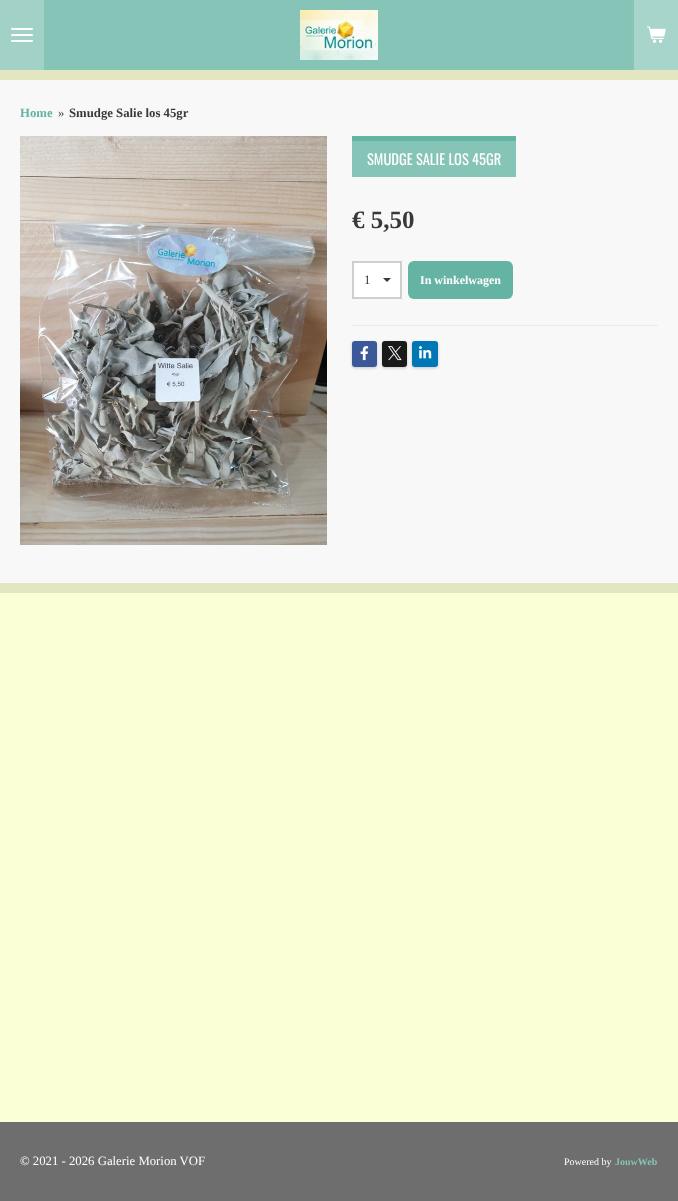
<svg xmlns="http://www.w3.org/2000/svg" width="678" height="1201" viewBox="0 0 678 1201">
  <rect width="100%" height="100%" fill="#fbffd6"/>
  <path d="M0 0h44v70H0z" fill="#a1d1c7"/>
  <rect x="11" y="34" width="22" height="2" rx="1" fill="#fff"/>
  <rect x="11" y="28" width="22" height="2" rx="1" fill="#fff"/>
  <rect x="11" y="40" width="22" height="2" rx="1" fill="#fff"/>
  <path d="M44 0h590v70H44z" fill="#86c4b7"/>
  <image x="300" y="10" width="78" height="50" href="img/1.png"/>
  <path d="M634 0h44v70H634z" fill="#a8d5cb"/>
  <image x="647" y="26" width="19" height="17" href="img/2.png"/>
  <path d="M0 70h678v523H0z" fill="#e2e6c1"/>
  <path d="M0 80h678v503H0z" fill="#f8f8f8"/>
  <image x="20" y="136" width="307" height="409" href="img/3.png"/>
  <path d="M352 141h164v36H352z" fill="#86c4b7"/>
  <path d="M352 136h164v5H352z" fill="#64b3a3"/>
  <path d="M354 263h46v34H354z" fill="#fff"/>
  <path d="M387 282L383 278H391Z" fill="#393939"/>
  <path d="M353 262h48v36H353z" fill="none" stroke="#cfcfcf" stroke-width="2"/>
  <rect x="408" y="261" width="105" height="38" rx="6" fill="#64b3a3"/>
  <path d="M352 325h306v1H352z" fill="#ebebeb"/>
  <rect x="352" y="342" width="25" height="26" rx="3" fill="#00000033" filter="blur(1.5px)"/>
  <rect x="352" y="341" width="25" height="26" rx="3" fill="#3b5998"/>
  <image x="360" y="346" width="9" height="15" href="img/4.png"/>
  <rect x="382" y="342" width="25" height="26" rx="3" fill="#00000033" filter="blur(1.5px)"/>
  <rect x="382" y="341" width="25" height="26" rx="3" fill="#1a1a1a"/>
  <image x="388" y="346" width="14" height="15" href="img/5.png"/>
  <rect x="412" y="342" width="26" height="26" rx="3" fill="#00000033" filter="blur(1.5px)"/>
  <rect x="412" y="341" width="26" height="26" rx="3" fill="#0077b5"/>
  <image x="419" y="346" width="13" height="13" href="img/6.png"/>
  <path d="M0 1122h678v79H0z" fill="#6e6e6e"/>
  <text x="20" y="117" font-family="Liberation Serif" font-size="12.75" font-weight="bold" fill="#64b3a3">Home</text>
  <text x="58" y="117" font-family="Liberation Serif" font-size="12.75" fill="#393939">»</text>
  <text x="69" y="117" font-family="Liberation Serif" font-size="12.75" font-weight="bold" fill="#393939">Smudge Salie los 45gr</text>
  <text x="367" y="165" font-family="Oswald" font-size="14.5" fill="#fff">SMUDGE SALIE LOS 45GR</text>
  <text x="352" y="228" font-family="Liberation Serif" font-size="25" font-weight="bold" fill="#393939">€ 5,50</text>
  <text x="364" y="284" font-family="Liberation Serif" font-size="12.75" fill="#393939">1</text>
  <text x="420" y="284" font-family="Liberation Serif" font-size="12" font-weight="bold" fill="#fff">In winkelwagen</text>
  <text x="20" y="1165" font-family="Liberation Serif" font-size="12.75" fill="#fff">© 2021 - 2026 Galerie Morion VOF</text>
  <text x="564" y="1165" font-family="Liberation Serif" font-size="10" fill="#fff">Powered by</text>
  <text x="615" y="1165" font-family="Liberation Serif" font-size="10" font-weight="bold" fill="#86c4b7">JouwWeb</text>
</svg>
